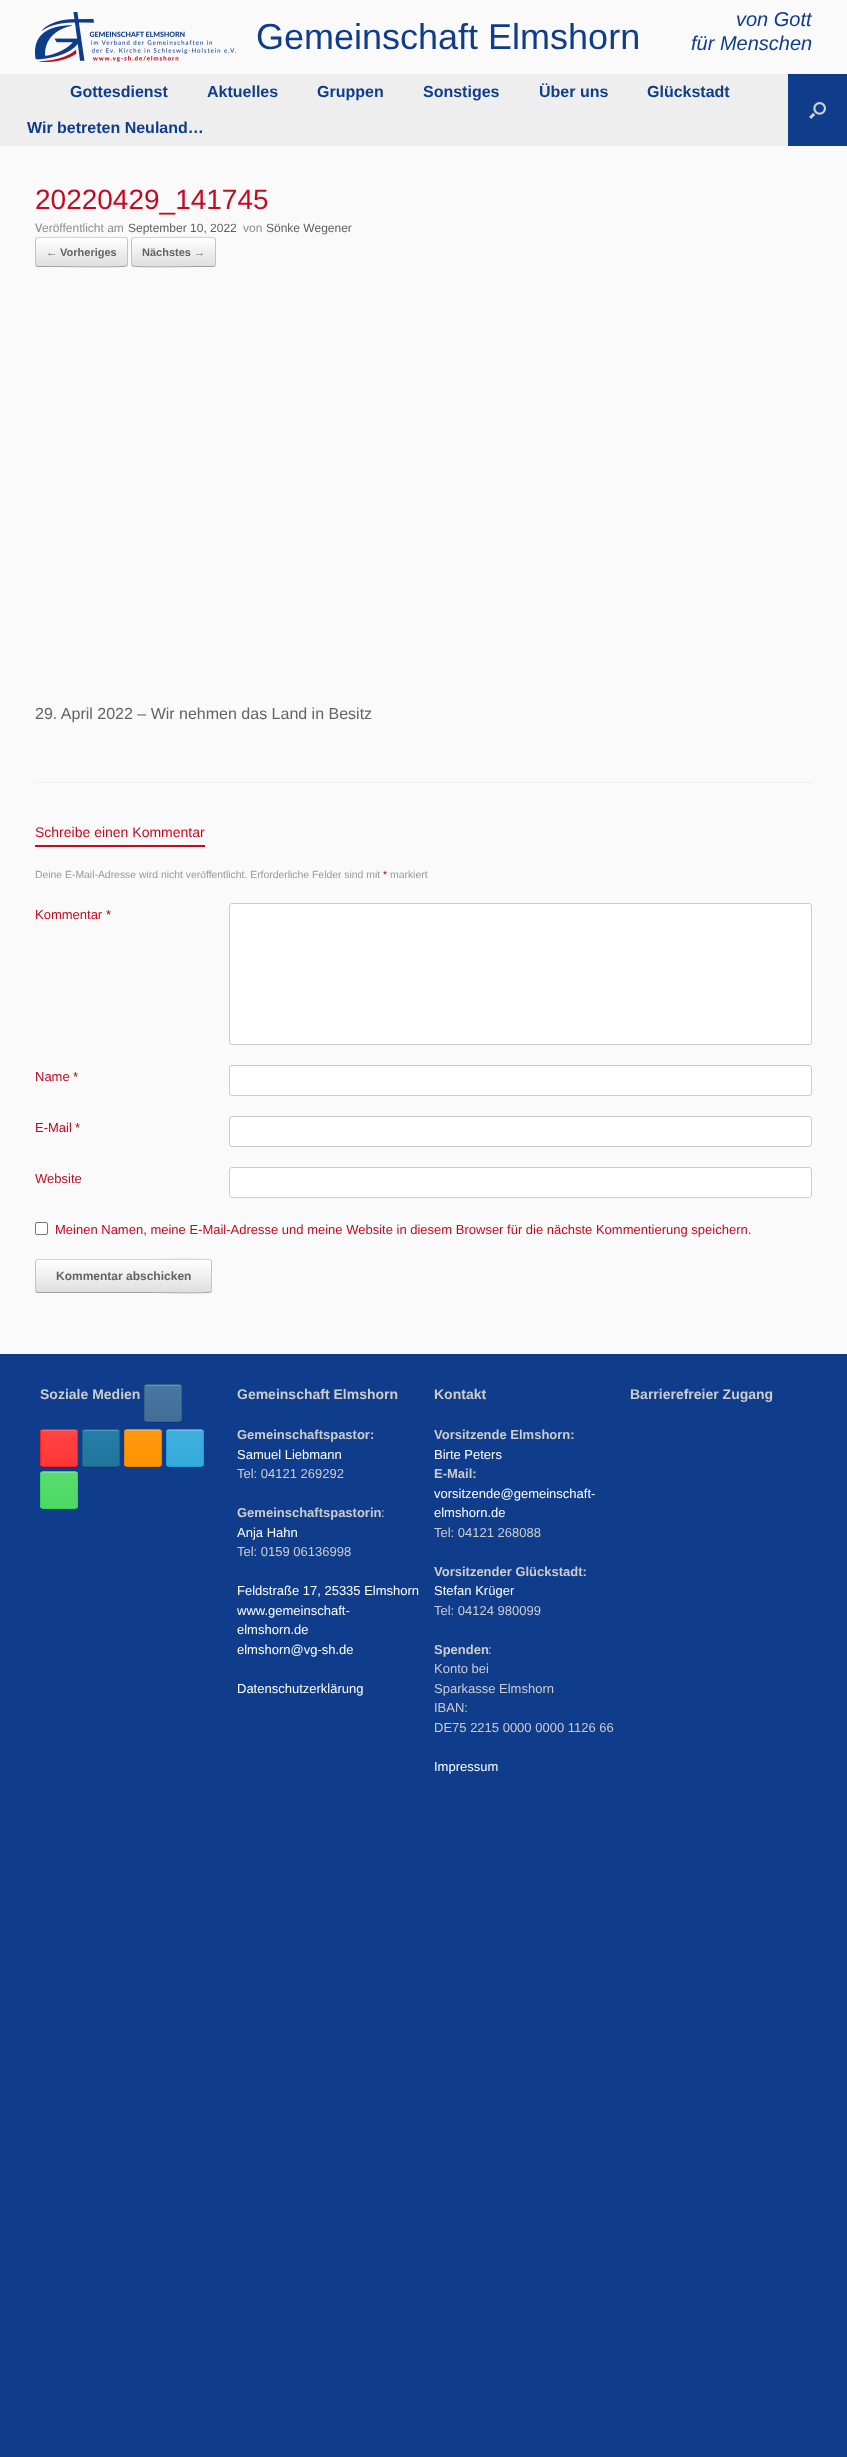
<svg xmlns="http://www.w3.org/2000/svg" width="847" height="2457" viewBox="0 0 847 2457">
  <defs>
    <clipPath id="clip1"><rect x="35" y="237" width="93" height="30" rx="3"/></clipPath>
    <linearGradient id="g1" gradientUnits="userSpaceOnUse" x1="36" y1="238" x2="36" y2="210"><stop offset="0" stop-color="#dfdfdf"/><stop offset="1" stop-color="#fff"/></linearGradient>
    <linearGradient id="g2" gradientUnits="userSpaceOnUse" x1="36" y1="266" x2="36" y2="238"><stop offset="0" stop-color="#dfdfdf"/><stop offset="1" stop-color="#fff"/></linearGradient>
    <linearGradient id="g3" gradientUnits="userSpaceOnUse" x1="36" y1="294" x2="36" y2="266"><stop offset="0" stop-color="#dfdfdf"/><stop offset="1" stop-color="#fff"/></linearGradient>
    <clipPath id="clip2"><rect x="131" y="237" width="85" height="30" rx="3"/></clipPath>
    <linearGradient id="g4" gradientUnits="userSpaceOnUse" x1="132" y1="238" x2="132" y2="210"><stop offset="0" stop-color="#dfdfdf"/><stop offset="1" stop-color="#fff"/></linearGradient>
    <linearGradient id="g5" gradientUnits="userSpaceOnUse" x1="132" y1="266" x2="132" y2="238"><stop offset="0" stop-color="#dfdfdf"/><stop offset="1" stop-color="#fff"/></linearGradient>
    <linearGradient id="g6" gradientUnits="userSpaceOnUse" x1="132" y1="294" x2="132" y2="266"><stop offset="0" stop-color="#dfdfdf"/><stop offset="1" stop-color="#fff"/></linearGradient>
    <clipPath id="clip3"><rect x="35" y="1259" width="177" height="34" rx="3"/></clipPath>
    <linearGradient id="g7" gradientUnits="userSpaceOnUse" x1="36" y1="1260" x2="36" y2="1228"><stop offset="0" stop-color="#dfdfdf"/><stop offset="1" stop-color="#fff"/></linearGradient>
    <linearGradient id="g8" gradientUnits="userSpaceOnUse" x1="36" y1="1292" x2="36" y2="1260"><stop offset="0" stop-color="#dfdfdf"/><stop offset="1" stop-color="#fff"/></linearGradient>
    <linearGradient id="g9" gradientUnits="userSpaceOnUse" x1="36" y1="1324" x2="36" y2="1292"><stop offset="0" stop-color="#dfdfdf"/><stop offset="1" stop-color="#fff"/></linearGradient>
    <clipPath id="clip4"><rect x="144" y="1384" width="38" height="38" rx="3"/></clipPath>
    <linearGradient id="g10" gradientUnits="userSpaceOnUse" x1="163" y1="1421" x2="163" y2="1385"><stop offset="0" stop-color="#426f98"/><stop offset="1" stop-color="#4777a3"/></linearGradient>
    <clipPath id="clip5"><rect x="40" y="1429" width="38" height="38" rx="3"/></clipPath>
    <linearGradient id="g11" gradientUnits="userSpaceOnUse" x1="59" y1="1466" x2="59" y2="1430"><stop offset="0" stop-color="#ff3635"/><stop offset="1" stop-color="#ff4544"/></linearGradient>
    <clipPath id="clip6"><rect x="82" y="1429" width="38" height="38" rx="3"/></clipPath>
    <linearGradient id="g12" gradientUnits="userSpaceOnUse" x1="101" y1="1466" x2="101" y2="1430"><stop offset="0" stop-color="#21759b"/><stop offset="1" stop-color="#247fa8"/></linearGradient>
    <clipPath id="clip7"><rect x="124" y="1429" width="38" height="38" rx="3"/></clipPath>
    <linearGradient id="g13" gradientUnits="userSpaceOnUse" x1="143" y1="1466" x2="143" y2="1430"><stop offset="0" stop-color="#ff9200"/><stop offset="1" stop-color="#ff990f"/></linearGradient>
    <clipPath id="clip8"><rect x="166" y="1429" width="38" height="38" rx="3"/></clipPath>
    <linearGradient id="g14" gradientUnits="userSpaceOnUse" x1="185" y1="1466" x2="185" y2="1430"><stop offset="0" stop-color="#34aadc"/><stop offset="1" stop-color="#41afde"/></linearGradient>
    <clipPath id="clip9"><rect x="40" y="1471" width="38" height="38" rx="3"/></clipPath>
    <linearGradient id="g15" gradientUnits="userSpaceOnUse" x1="59" y1="1508" x2="59" y2="1472"><stop offset="0" stop-color="#4cd964"/><stop offset="1" stop-color="#59dc6f"/></linearGradient>
  </defs>
  <rect width="100%" height="100%" fill="#fafafa"/>
  <image x="35" y="12" width="201" height="50" href="img/1.png"/>
  <path d="M0 74h788v72H0z" fill="#eee"/>
  <path d="M788 74h59v72H788z" fill="#0f3d8c"/>
  <image x="809" y="102" width="17" height="17" href="img/2.png"/>
  <path d="M35 782h777v1H35z" fill="#eee"/>
  <g clip-path="url(#clip1)">
    <path d="M35 237h93v1H35z" fill="url(#g1)"/>
    <path d="M35 238h93v28H35z" fill="url(#g2)"/>
    <path d="M35 266h93v1H35z" fill="url(#g3)"/>
  </g>
  <path d="M36 238H36.5C38.5 236.5 103 237.5 110.5 237.5H125L127 238" fill="none" stroke="#d2d2d2"/>
  <path d="M127 238C127 238.5 127.5 239.5 127.5 240V264C127.5 264.5 127 265.5 127 266" fill="none" stroke="#c3c3c3"/>
  <path d="M127 266H126.5C124.5 267.5 60 266.5 52.5 266.5H38L36 266" fill="none" stroke="#9f9f9f"/>
  <path d="M36 266C36 265.5 35.5 264.5 35.5 264V240C35.5 239.5 36 238.5 36 238" fill="none" stroke="#c3c3c3"/>
  <g clip-path="url(#clip2)">
    <path d="M131 237h85v1H131z" fill="url(#g4)"/>
    <path d="M131 238h85v28H131z" fill="url(#g5)"/>
    <path d="M131 266h85v1H131z" fill="url(#g6)"/>
  </g>
  <path d="M132 238L134 237.5H147C154.5 237.5 212.5 236.5 214.5 238H215" fill="none" stroke="#d2d2d2"/>
  <path d="M215 238C215 238.5 215.5 239.5 215.5 240V264C215.5 264.5 215 265.5 215 266" fill="none" stroke="#c3c3c3"/>
  <path d="M215 266L213 266.5H200C192.5 266.5 134.5 267.5 132.5 266H132" fill="none" stroke="#9f9f9f"/>
  <path d="M132 266C132 265.5 131.5 264.5 131.5 264V240C131.5 239.5 132 238.5 132 238" fill="none" stroke="#c3c3c3"/>
  <path d="M35 845h170v2H35z" fill="#c30a1e"/>
  <rect x="229.5" y="903.5" width="582" height="141" rx="2.5" fill="#fff" stroke="#ccc"/>
  <rect x="229.5" y="1065.5" width="582" height="30" rx="2.5" fill="#fff" stroke="#ccc"/>
  <rect x="229.5" y="1116.5" width="582" height="30" rx="2.5" fill="#fff" stroke="#ccc"/>
  <rect x="229.5" y="1167.5" width="582" height="30" rx="2.5" fill="#fff" stroke="#ccc"/>
  <rect x="35.5" y="1222.5" width="12" height="12" rx="1.5" fill="#fff" stroke="#767676"/>
  <g clip-path="url(#clip3)">
    <path d="M35 1259h177v1H35z" fill="url(#g7)"/>
    <path d="M35 1260h177v32H35z" fill="url(#g8)"/>
    <path d="M35 1292h177v1H35z" fill="url(#g9)"/>
  </g>
  <path d="M36 1260L38 1259.5H152C155.5 1259.5 209 1258.5 211 1260" fill="none" stroke="#d2d2d2"/>
  <path d="M211 1260C211 1260.5 211.5 1261.5 211.5 1262V1290C211.5 1290.5 211 1291.5 211 1292" fill="none" stroke="#c3c3c3"/>
  <path d="M211 1292C209 1293.5 155.5 1292.5 152 1292.5H38L36 1292" fill="none" stroke="#9f9f9f"/>
  <path d="M36 1292C36 1291.5 35.5 1290.5 35.5 1290V1262C35.5 1261.5 36 1260.5 36 1260" fill="none" stroke="#c3c3c3"/>
  <path d="M0 1354h847v1103H0z" fill="#0f3d8c"/>
  <rect x="144" y="1385" width="38" height="38" rx="3" fill="#0000001a" filter="blur(0.5px)"/>
  <g clip-path="url(#clip4)">
    <path d="M144 1385h38v36H144z" fill="url(#g10)"/>
  </g>
  <path d="M147 1386H179C180 1386 181 1387 181 1388C181 1383.5 177.5 1385 173.5 1385H152.5C148.5 1385 145 1383.5 145 1388C145 1387 146 1386 147 1386Z" fill="#6c92b5"/>
  <rect x="144.5" y="1384.5" width="37" height="37" rx="2.5" fill="none" stroke="#3a6286"/>
  <rect x="40" y="1430" width="38" height="38" rx="3" fill="#0000001a" filter="blur(0.5px)"/>
  <g clip-path="url(#clip5)">
    <path d="M40 1430h38v36H40z" fill="url(#g11)"/>
  </g>
  <path d="M43 1431H75C76 1431 77 1432 77 1433C77 1428.5 73.5 1430 69.5 1430H48.5C44.5 1430 41 1428.5 41 1433C41 1432 42 1431 43 1431Z" fill="#ff6a69"/>
  <rect x="40.5" y="1429.5" width="37" height="37" rx="2.5" fill="none" stroke="#ff1d1b"/>
  <rect x="82" y="1430" width="38" height="38" rx="3" fill="#0000001a" filter="blur(0.5px)"/>
  <g clip-path="url(#clip6)">
    <path d="M82 1430h38v36H82z" fill="url(#g12)"/>
  </g>
  <path d="M85 1431H117C118 1431 119 1432 119 1433C119 1428.5 115.5 1430 111.5 1430H90.5C86.5 1430 83 1428.5 83 1433C83 1432 84 1431 85 1431Z" fill="#5099b9"/>
  <rect x="82.5" y="1429.5" width="37" height="37" rx="2.5" fill="none" stroke="#1d6586"/>
  <rect x="124" y="1430" width="38" height="38" rx="3" fill="#0000001a" filter="blur(0.5px)"/>
  <g clip-path="url(#clip7)">
    <path d="M124 1430h38v36H124z" fill="url(#g13)"/>
  </g>
  <path d="M127 1431H159C160 1431 161 1432 161 1433C161 1428.5 157.5 1430 153.5 1430H132.5C128.5 1430 125 1428.5 125 1433C125 1432 126 1431 127 1431Z" fill="#ffad3f"/>
  <rect x="124.5" y="1429.5" width="37" height="37" rx="2.5" fill="none" stroke="#e68300"/>
  <rect x="166" y="1430" width="38" height="38" rx="3" fill="#0000001a" filter="blur(0.5px)"/>
  <g clip-path="url(#clip8)">
    <path d="M166 1430h38v36H166z" fill="url(#g14)"/>
  </g>
  <path d="M169 1431H201C202 1431 203 1432 203 1433C203 1428.5 199.5 1430 195.5 1430H174.5C170.5 1430 167 1428.5 167 1433C167 1432 168 1431 169 1431Z" fill="#67bfe5"/>
  <rect x="166.5" y="1429.5" width="37" height="37" rx="2.5" fill="none" stroke="#249ed2"/>
  <rect x="40" y="1472" width="38" height="38" rx="3" fill="#0000001a" filter="blur(0.5px)"/>
  <g clip-path="url(#clip9)">
    <path d="M40 1472h38v36H40z" fill="url(#g15)"/>
  </g>
  <path d="M43 1473H75C76 1473 77 1474 77 1475C77 1470.5 73.5 1472 69.5 1472H48.5C44.5 1472 41 1470.5 41 1475C41 1474 42 1473 43 1473Z" fill="#7ae38c"/>
  <rect x="40.5" y="1471.5" width="37" height="37" rx="2.5" fill="none" stroke="#37d552"/>
  <text x="256" y="49" font-family="Liberation Sans" font-size="36" fill="#0f3d8c">Gemeinschaft Elmshorn</text>
  <g font-family="Liberation Sans" font-size="20" font-style="italic" fill="#0f3d8c">
    <text x="736" y="26">von Gott</text>
    <text x="691" y="50">für Menschen</text>
  </g>
  <g font-family="Liberation Sans" font-size="16" font-weight="bold" fill="#0f3d8c">
    <text x="70" y="97">Gottesdienst</text>
    <text x="207" y="97">Aktuelles</text>
    <text x="317" y="97">Gruppen</text>
    <text x="423" y="97">Sonstiges</text>
    <text x="539" y="97">Über uns</text>
    <text x="647" y="97">Glückstadt</text>
    <text x="27" y="133">Wir betreten Neuland…</text>
  </g>
  <text x="35" y="209" font-family="Liberation Sans" font-size="28" fill="#c30a1e">20220429_141745</text>
  <text x="35" y="232" font-family="Noto Sans" font-size="12" font-weight="500" fill="#8f8f8f">V</text>
  <text x="42" y="232" font-family="Liberation Sans" font-size="12" fill="#8f8f8f">eröffentlicht am</text>
  <text x="128" y="232" font-family="Liberation Sans" font-size="12" fill="#5e5e5e">September 10, 2022</text>
  <text x="243" y="232" font-family="Liberation Sans" font-size="12" fill="#8f8f8f">von</text>
  <text x="266" y="232" font-family="Liberation Sans" font-size="12" fill="#5e5e5e">Sönke Wegener</text>
  <g font-family="Liberation Sans" font-size="11" font-weight="bold" fill="#646464">
    <text x="46" y="256">← Vorheriges</text>
    <text x="142" y="256">Nächstes →</text>
  </g>
  <text x="35" y="719" font-family="Liberation Sans" font-size="16" fill="#646464">29. April 2022 – Wir nehmen das Land in Besitz</text>
  <text x="35" y="837" font-family="Liberation Sans" font-size="14" fill="#c30a1e">Schreibe einen Kommentar</text>
  <text x="35" y="878" font-family="Liberation Sans" font-size="10.4" fill="#999">Deine E-Mail-Adresse wird nicht veröffentlicht. Erforderliche Felder sind mit</text>
  <text x="383" y="878" font-family="Liberation Sans" font-size="10.4" fill="#a40802">*</text>
  <text x="390" y="878" font-family="Liberation Sans" font-size="10.4" fill="#999">markiert</text>
  <text x="35" y="919" font-family="Liberation Sans" font-size="13" fill="#c30a1e">Kommentar</text>
  <text x="106" y="919" font-family="Liberation Sans" font-size="13" fill="#a40802">*</text>
  <text x="35" y="1081" font-family="Liberation Sans" font-size="13" fill="#c30a1e">Name</text>
  <text x="73" y="1081" font-family="Liberation Sans" font-size="13" fill="#a40802">*</text>
  <text x="35" y="1132" font-family="Liberation Sans" font-size="13" fill="#c30a1e">E-Mail</text>
  <text x="75" y="1132" font-family="Liberation Sans" font-size="13" fill="#a40802">*</text>
  <g font-family="Liberation Sans" font-size="13" fill="#c30a1e">
    <text x="35" y="1183">Website</text>
    <text x="55" y="1234">Meinen Namen, meine E-Mail-Adresse und meine Website in diesem Browser für die nächste Kommentierung speichern.</text>
  </g>
  <text x="56" y="1280" font-family="Liberation Sans" font-size="12" font-weight="bold" fill="#646464">Kommentar abschicken</text>
  <g font-family="Liberation Sans" font-size="14" font-weight="bold" fill="#ccc">
    <text x="40" y="1399">Soziale Medien</text>
    <text x="237" y="1399">Gemeinschaft Elmshorn</text>
  </g>
  <text x="237" y="1439" font-family="Liberation Sans" font-size="13" font-weight="bold" fill="#ccc">Gemeinschaftspastor:</text>
  <text x="237" y="1459" font-family="Liberation Sans" font-size="13" fill="#fff">Samuel Liebmann</text>
  <text x="237" y="1478" font-family="Liberation Sans" font-size="13" fill="#ccc">Tel: 04121 269292</text>
  <text x="237" y="1517" font-family="Liberation Sans" font-size="13" font-weight="bold" fill="#ccc">Gemeinschaftspastorin</text>
  <text x="381" y="1517" font-family="Liberation Sans" font-size="13" fill="#ccc">:</text>
  <text x="237" y="1537" font-family="Liberation Sans" font-size="13" fill="#fff">Anja Hahn</text>
  <text x="237" y="1556" font-family="Liberation Sans" font-size="13" fill="#ccc">Tel: 0159 06136998</text>
  <g font-family="Liberation Sans" font-size="13" fill="#fff">
    <text x="237" y="1595">Feldstraße 17, 25335 Elmshorn</text>
    <text x="237" y="1615">www.gemeinschaft-</text>
    <text x="237" y="1634">elmshorn.de</text>
    <text x="237" y="1654">elmshorn@vg-sh.de</text>
    <text x="237" y="1693">Datenschutzerklärung</text>
  </g>
  <text x="434" y="1399" font-family="Liberation Sans" font-size="14" font-weight="bold" fill="#ccc">Kontakt</text>
  <text x="434" y="1439" font-family="Liberation Sans" font-size="13" font-weight="bold" fill="#ccc">Vorsitzende Elmshorn:</text>
  <text x="434" y="1459" font-family="Liberation Sans" font-size="13" fill="#fff">Birte Peters</text>
  <text x="434" y="1478" font-family="Liberation Sans" font-size="13" font-weight="bold" fill="#ccc">E-Mail:</text>
  <g font-family="Liberation Sans" font-size="13" fill="#fff">
    <text x="434" y="1498">vorsitzende@gemeinschaft-</text>
    <text x="434" y="1517">elmshorn.de</text>
  </g>
  <text x="434" y="1537" font-family="Liberation Sans" font-size="13" fill="#ccc">Tel: 04121 268088</text>
  <text x="434" y="1576" font-family="Liberation Sans" font-size="13" font-weight="bold" fill="#ccc">Vorsitzender Glückstadt:</text>
  <text x="434" y="1595" font-family="Liberation Sans" font-size="13" fill="#fff">Stefan Krüger</text>
  <text x="434" y="1615" font-family="Liberation Sans" font-size="13" fill="#ccc">Tel: 04124 980099</text>
  <text x="434" y="1654" font-family="Liberation Sans" font-size="13" font-weight="bold" fill="#ccc">Spenden</text>
  <g font-family="Liberation Sans" font-size="13" fill="#ccc">
    <text x="488" y="1654">:</text>
    <text x="434" y="1673">Konto bei</text>
    <text x="434" y="1693">Sparkasse Elmshorn</text>
    <text x="434" y="1712">IBAN:</text>
    <text x="434" y="1732">DE75 2215 0000 0000 1126 66</text>
  </g>
  <text x="434" y="1771" font-family="Liberation Sans" font-size="13" fill="#fff">Impressum</text>
  <text x="630" y="1399" font-family="Liberation Sans" font-size="14" font-weight="bold" fill="#ccc">Barrierefreier Zugang</text>
</svg>
